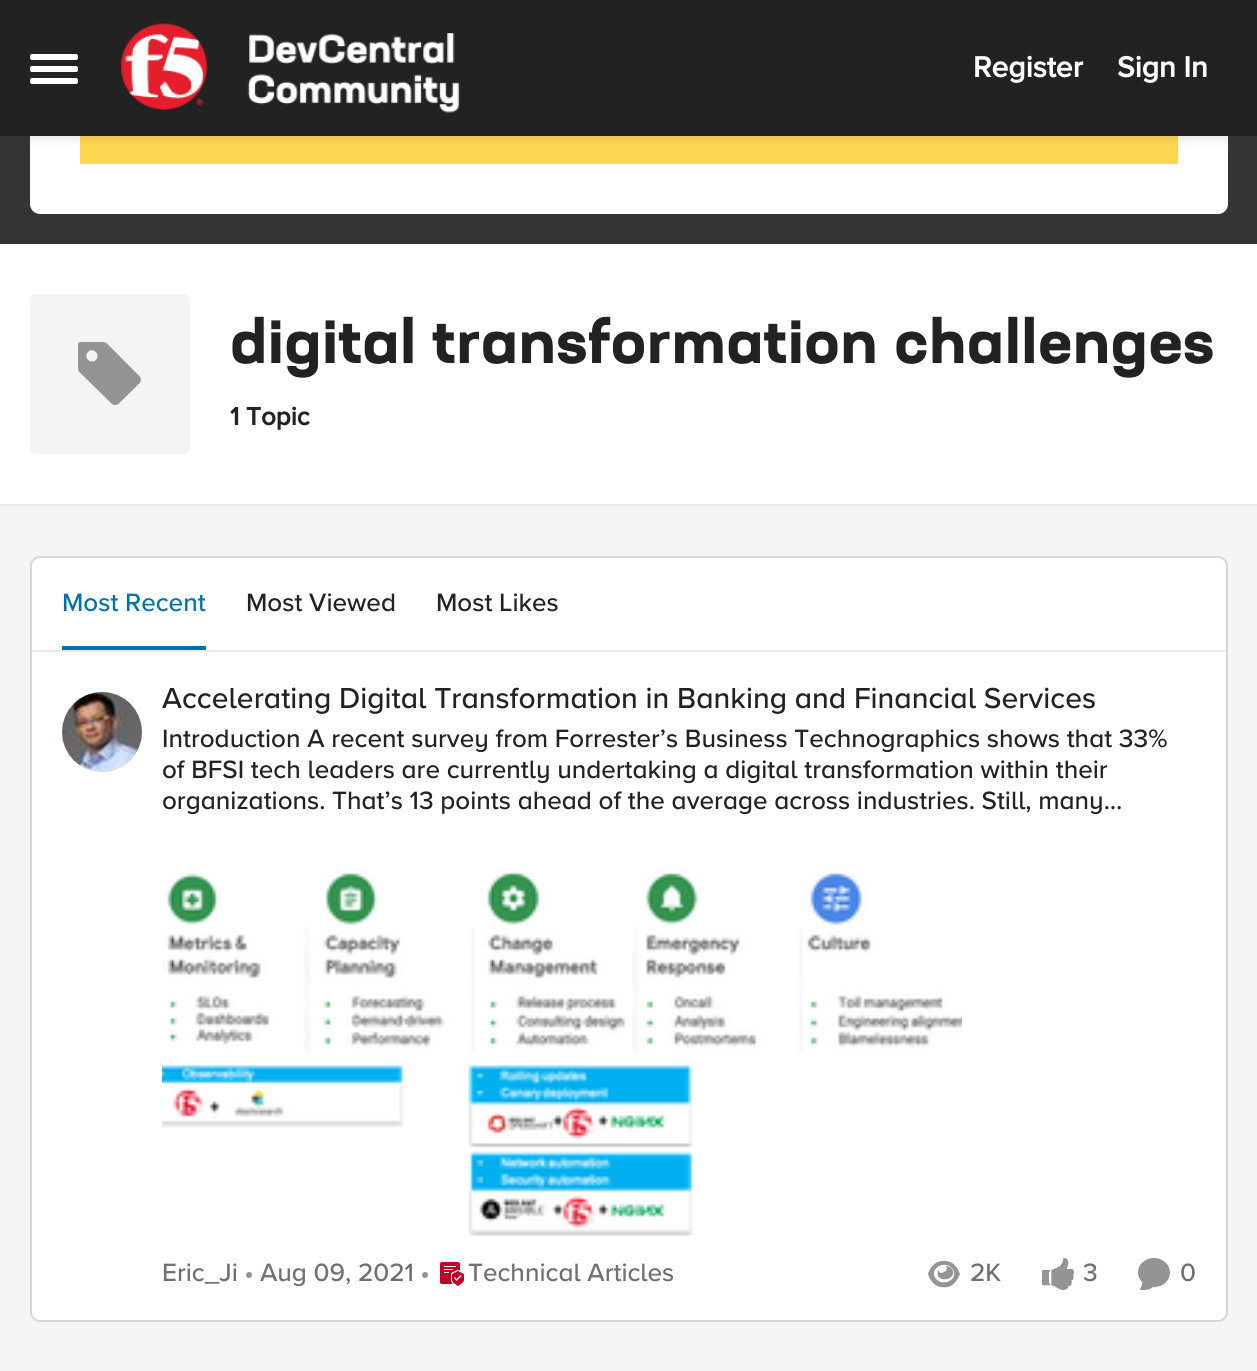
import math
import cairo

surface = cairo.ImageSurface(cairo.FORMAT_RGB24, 1257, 1371)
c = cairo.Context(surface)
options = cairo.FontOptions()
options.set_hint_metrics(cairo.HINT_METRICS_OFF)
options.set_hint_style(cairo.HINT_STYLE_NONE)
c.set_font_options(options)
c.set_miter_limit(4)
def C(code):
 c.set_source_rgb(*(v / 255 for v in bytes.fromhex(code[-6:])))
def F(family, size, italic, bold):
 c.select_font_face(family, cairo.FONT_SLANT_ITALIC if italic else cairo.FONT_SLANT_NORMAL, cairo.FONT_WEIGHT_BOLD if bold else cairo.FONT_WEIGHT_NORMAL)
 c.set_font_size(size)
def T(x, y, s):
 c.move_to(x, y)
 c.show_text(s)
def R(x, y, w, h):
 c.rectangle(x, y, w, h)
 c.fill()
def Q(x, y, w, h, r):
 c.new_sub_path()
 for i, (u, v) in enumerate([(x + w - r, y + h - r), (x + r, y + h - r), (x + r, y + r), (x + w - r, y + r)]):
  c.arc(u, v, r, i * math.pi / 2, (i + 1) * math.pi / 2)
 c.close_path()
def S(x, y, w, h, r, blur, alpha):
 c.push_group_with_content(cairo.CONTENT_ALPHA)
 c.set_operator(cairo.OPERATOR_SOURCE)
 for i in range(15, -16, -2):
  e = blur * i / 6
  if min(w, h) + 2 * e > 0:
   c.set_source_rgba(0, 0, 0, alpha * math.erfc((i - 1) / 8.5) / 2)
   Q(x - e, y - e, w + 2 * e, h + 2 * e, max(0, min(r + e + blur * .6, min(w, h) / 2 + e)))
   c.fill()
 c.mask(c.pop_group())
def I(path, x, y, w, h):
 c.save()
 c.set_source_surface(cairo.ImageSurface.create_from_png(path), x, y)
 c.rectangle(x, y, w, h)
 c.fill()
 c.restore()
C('f5f5f5')
c.paint()
C('343434')
R(0,136,1257,108)
C('ffffff')
Q(30,-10,1198,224,10)
c.fill()
C('ffd651')
R(80,136,1098,28)
C('333333')
S(0,4,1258,136,0,4,.12)
C('222222')
R(0,0,1257,136)
C('ffffff')
Q(30,54,48,6,2)
c.fill()
Q(30,66,48,6,2)
c.fill()
Q(30,78,48,6,2)
c.fill()
I('1.png',121,23,339,90)
F('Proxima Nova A',30,0,1)
T(973,77,'Register')
T(1117,77,'Sign In')
R(0,244,1257,260)
C('ebebeb')
R(0,504,1257,2)
C('f4f4f4')
Q(30,294,160,160,6)
c.fill()
I('2.png',78,342,63,63)
F('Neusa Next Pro',60,0,1)
C('222222')
T(230,363,'digital transformation challenges')
F('Proxima Nova A',26,0,1)
T(230,425,'1 Topic')
C('ffffff')
Q(30,556,1198,766,10)
c.fill()
Q(31,557,1196,764,9)
c.set_source_rgba(0,0,0,0.16)
c.stroke()
C('ebebeb')
R(32,650,1194,2)
F('Proxima Nova A Medium',26,0,0)
C('0072b0')
T(62,611,'Most Recent')
R(62,646,144,4)
C('222222')
T(246,611,'Most Viewed')
T(436,611,'Most Likes')
C('d9d9d9')
c.new_path()
c.arc(102,732,40,0,2 * math.pi)
c.fill()
I('3.png',62,692,80,80)
F('Proxima Nova A Medium',30,0,0)
C('222222')
T(162,708,'Accelerating Digital Transformation in Banking and Financial Services')
F('Proxima Nova A Medium',26,0,0)
T(162,747,'Introduction A recent survey from Forrester’s Business Technographics shows that 33%')
T(162,778,'of BFSI tech leaders are currently undertaking a digital transformation within their')
T(162,809,'organizations. That’s 13 points ahead of the average across industries. Still, many…')
I('4.png',162,870,800,366)
C('707070')
T(162,1281,'Eric_Ji')
C('949494')
c.new_path()
c.arc(249,1275,3,0,2 * math.pi)
c.fill()
C('707070')
T(260,1281,'Aug 09, 2021')
C('949494')
c.new_path()
c.arc(425,1275,3,0,2 * math.pi)
c.fill()
I('5.png',440,1262,24,24)
C('707070')
T(468,1281,'Technical Articles')
I('6.png',928,1260,32,28)
T(970,1281,'2K')
I('7.png',1042,1258,32,32)
T(1083,1281,'3')
I('8.png',1138,1258,32,32)
T(1180,1281,'0')
surface.write_to_png('o.png')
